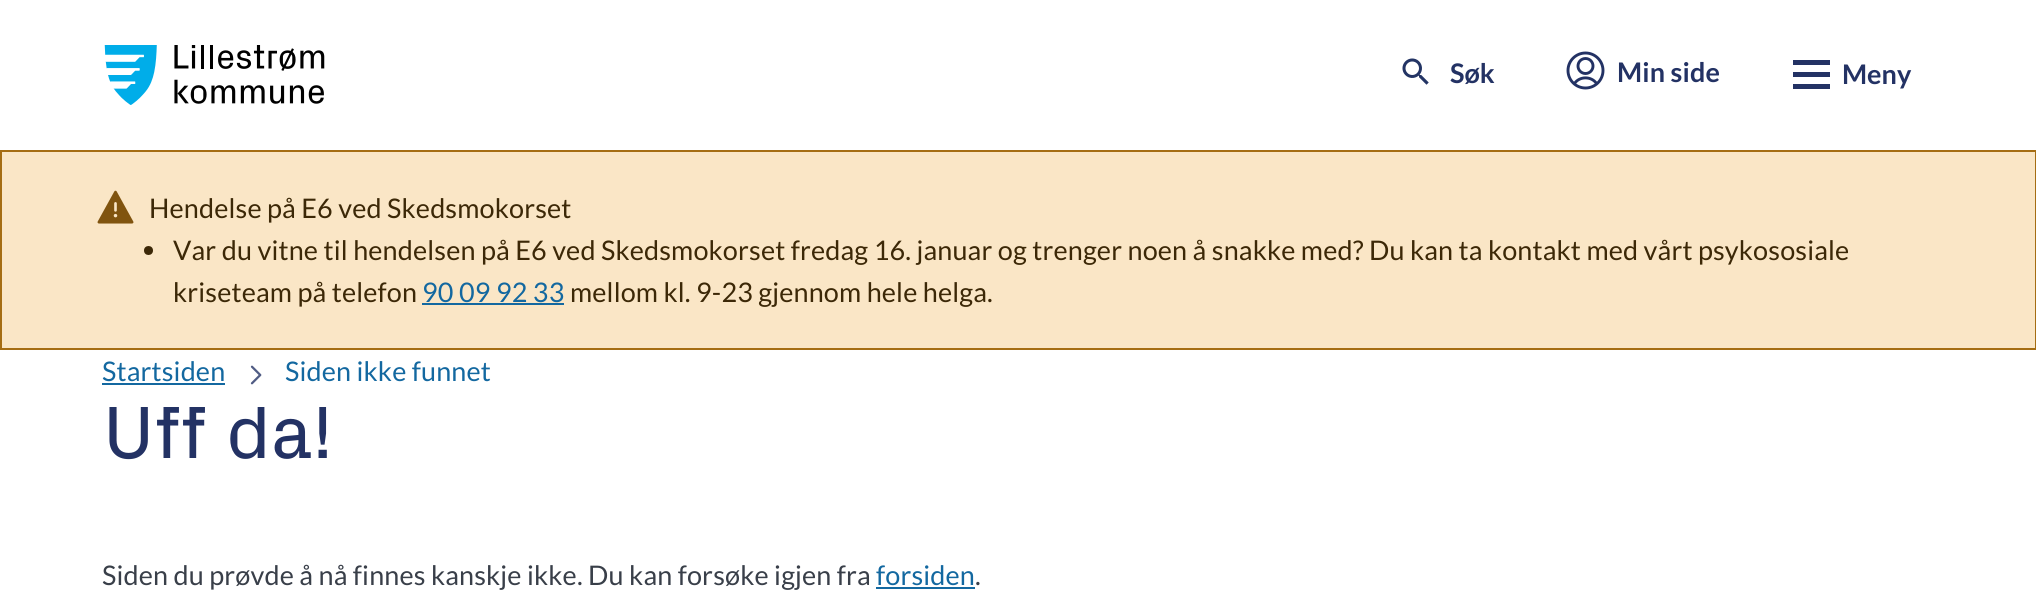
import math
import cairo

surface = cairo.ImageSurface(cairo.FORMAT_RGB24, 2036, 606)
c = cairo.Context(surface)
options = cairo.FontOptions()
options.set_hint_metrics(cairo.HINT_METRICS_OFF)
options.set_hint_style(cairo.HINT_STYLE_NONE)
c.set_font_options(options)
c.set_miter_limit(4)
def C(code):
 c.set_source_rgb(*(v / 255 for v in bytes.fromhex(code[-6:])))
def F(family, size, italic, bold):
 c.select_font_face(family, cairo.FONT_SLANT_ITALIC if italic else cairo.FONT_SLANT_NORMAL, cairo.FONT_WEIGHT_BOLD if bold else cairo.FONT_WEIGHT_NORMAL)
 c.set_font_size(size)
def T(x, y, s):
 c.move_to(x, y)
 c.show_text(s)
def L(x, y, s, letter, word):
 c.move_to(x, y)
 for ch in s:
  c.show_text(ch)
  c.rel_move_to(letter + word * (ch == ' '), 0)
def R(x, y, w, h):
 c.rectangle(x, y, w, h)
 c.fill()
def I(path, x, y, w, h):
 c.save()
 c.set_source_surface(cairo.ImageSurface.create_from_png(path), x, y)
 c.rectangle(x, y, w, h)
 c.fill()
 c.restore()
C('ffffff')
c.paint()
I('1.png',104,45,221,60)
I('2.png',1402,58,27,27)
F('Lato',27,0,1)
C('233264')
T(1450,83,'Søk')
c.new_path()
c.arc(1585.5,66,7.5,0,2 * math.pi)
c.set_line_width(2.9)
c.stroke()
c.arc(1585.5,70.5,17.5,0,2 * math.pi)
c.stroke()
c.new_path()
c.move_to(1596.5,83.5)
c.curve_to(1591.5,76,1579.5,76,1574.5,83.5)
c.stroke()
L(1617,82,'Min side',.14,0)
R(1793,60,37,5)
R(1793,72,37,5)
R(1793,84,37,5)
T(1842,84,'Meny')
C('fae6c6')
c.rectangle(1,151,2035,198)
c.fill_preserve()
C('a56d13')
c.set_line_width(2)
c.stroke()
I('3.png',97,190,37,34)
F('Lato',27,0,0)
C('3c2807')
L(149,218,'Hendelse på E6 ved Skedsmokorset',.14,0)
c.new_path()
c.arc(148.5,250.5,4.5,0,2 * math.pi)
c.fill()
L(173,260,'Var du vitne til hendelsen på E6 ved Skedsmokorset fredag 16. januar og trenger noen å snakke med? Du kan ta kontakt med vårt psykososiale',.14,0)
L(173,302,'kriseteam på telefon',.14,0)
C('1368a0')
L(422,302,'90 09 92 33',.14,0)
R(422,303,142,2)
C('3c2807')
L(570,302,'mellom kl. 9-23 gjennom hele helga.',.14,0)
C('1368a0')
L(102,381,'Startsiden',.14,0)
R(102,383,123,2)
I('4.png',250,365,12,20)
L(285,381,'Siden ikke funnet',.14,0)
F('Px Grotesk',75,0,0)
C('233264')
L(103,458,'Uff da!',.14,0)
F('Lato',27,0,0)
C('393f49')
L(102,585,'Siden du prøvde å nå finnes kanskje ikke. Du kan forsøke igjen fra',.14,0)
C('1368a0')
L(876,585,'forsiden',.14,0)
R(876,587,99,2)
C('393f49')
L(975,585,'.',.14,0)
surface.write_to_png('o.png')
